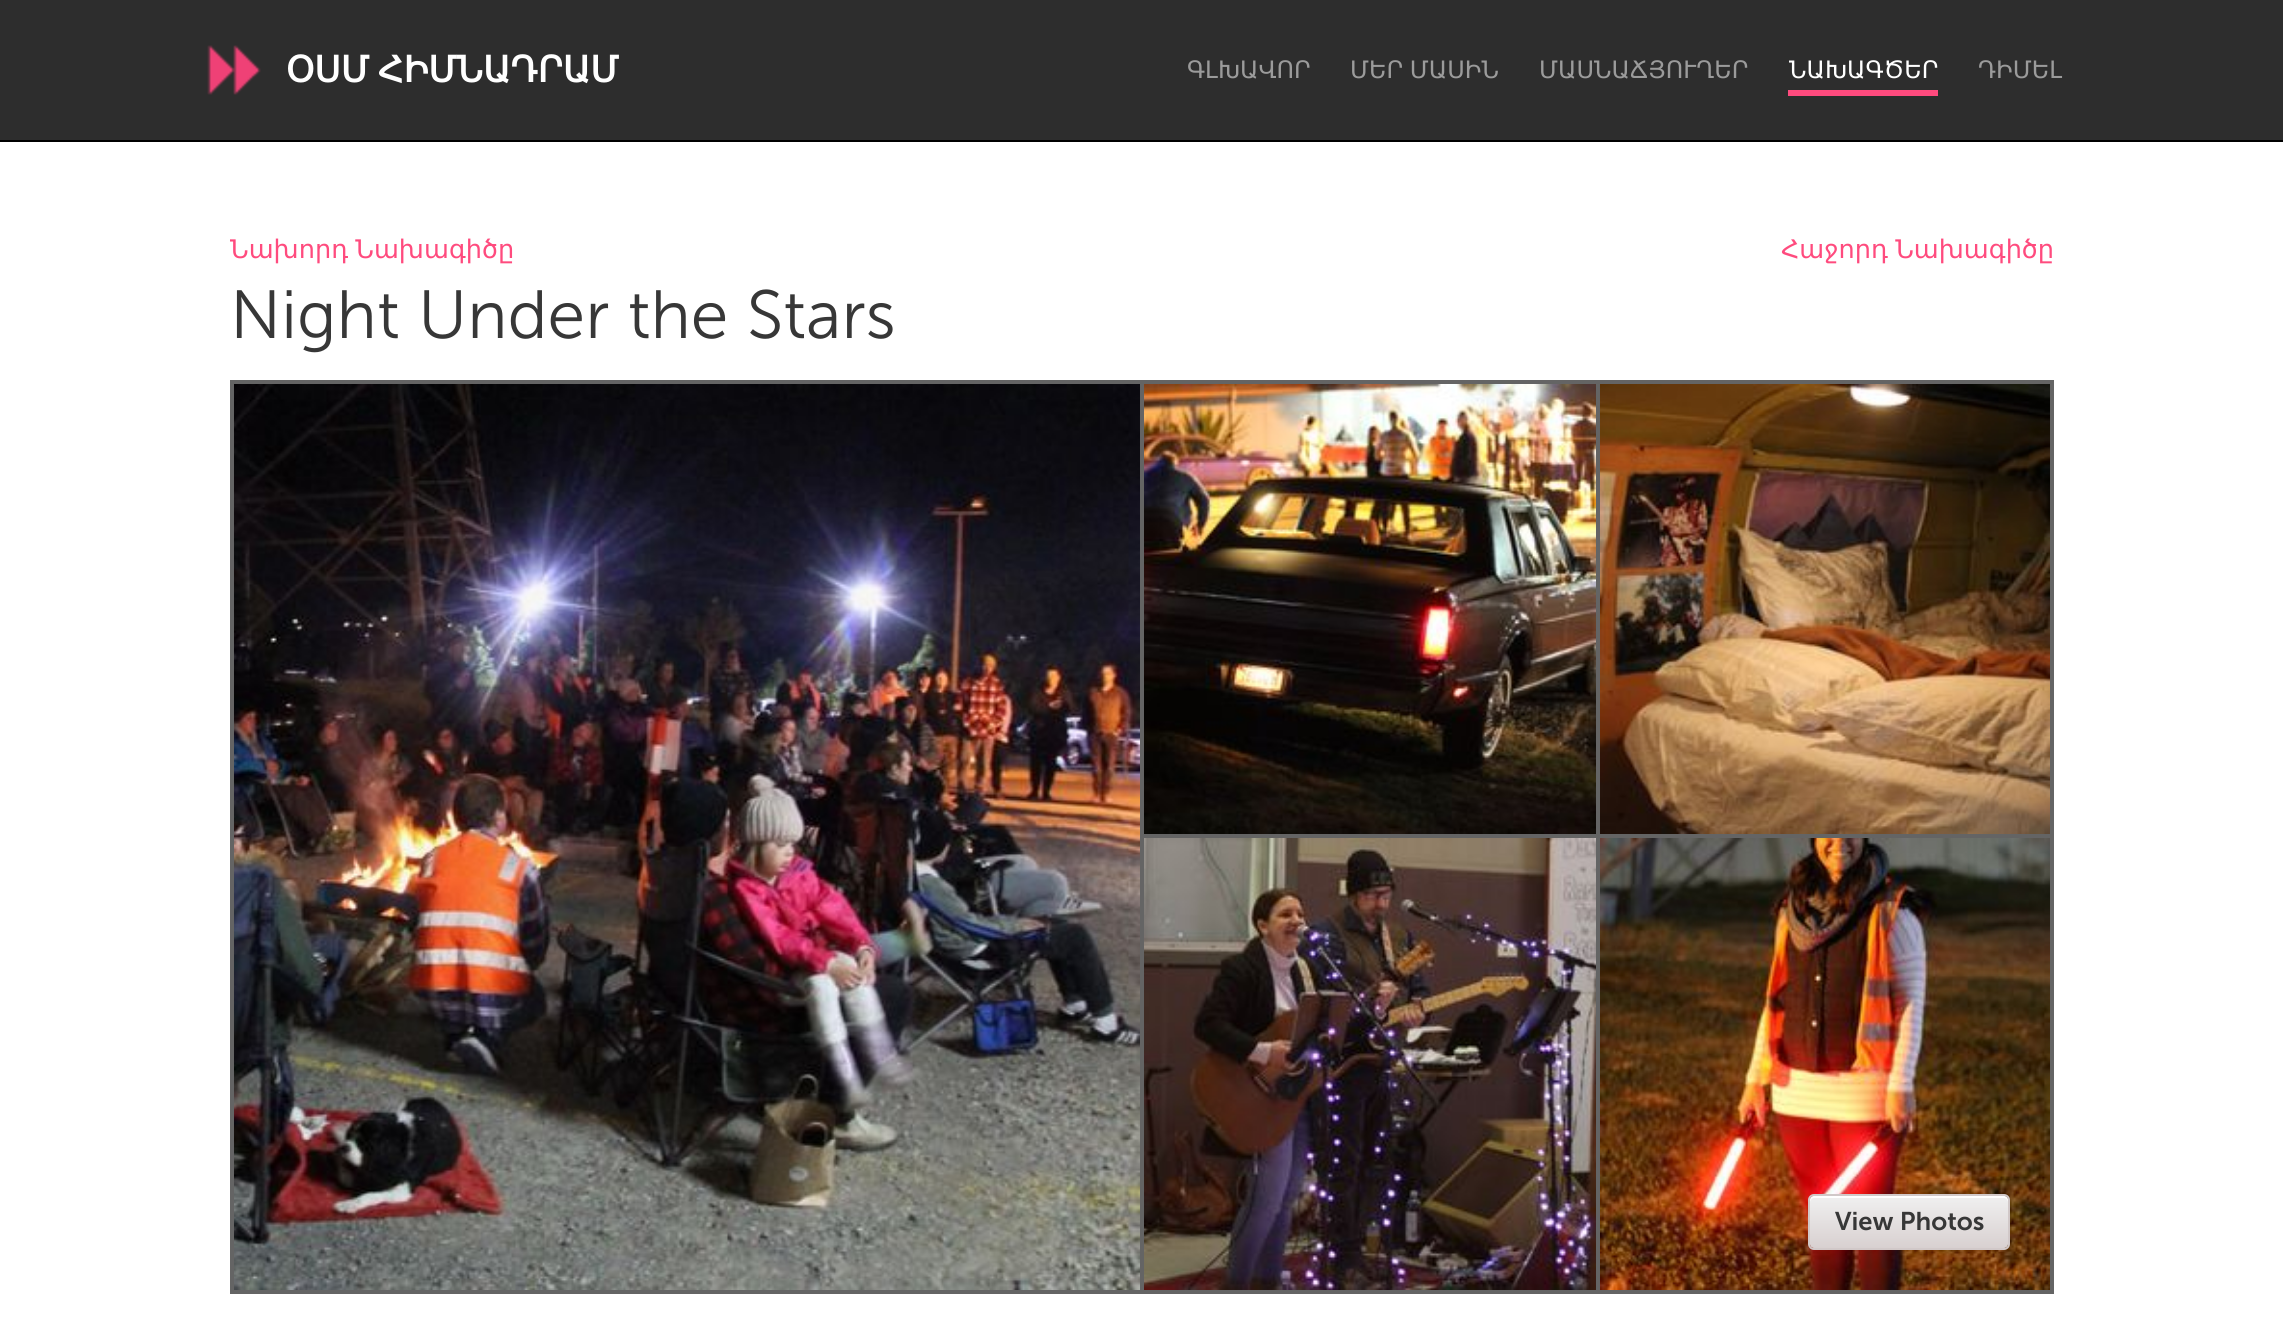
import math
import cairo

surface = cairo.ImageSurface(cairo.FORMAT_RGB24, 2283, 1321)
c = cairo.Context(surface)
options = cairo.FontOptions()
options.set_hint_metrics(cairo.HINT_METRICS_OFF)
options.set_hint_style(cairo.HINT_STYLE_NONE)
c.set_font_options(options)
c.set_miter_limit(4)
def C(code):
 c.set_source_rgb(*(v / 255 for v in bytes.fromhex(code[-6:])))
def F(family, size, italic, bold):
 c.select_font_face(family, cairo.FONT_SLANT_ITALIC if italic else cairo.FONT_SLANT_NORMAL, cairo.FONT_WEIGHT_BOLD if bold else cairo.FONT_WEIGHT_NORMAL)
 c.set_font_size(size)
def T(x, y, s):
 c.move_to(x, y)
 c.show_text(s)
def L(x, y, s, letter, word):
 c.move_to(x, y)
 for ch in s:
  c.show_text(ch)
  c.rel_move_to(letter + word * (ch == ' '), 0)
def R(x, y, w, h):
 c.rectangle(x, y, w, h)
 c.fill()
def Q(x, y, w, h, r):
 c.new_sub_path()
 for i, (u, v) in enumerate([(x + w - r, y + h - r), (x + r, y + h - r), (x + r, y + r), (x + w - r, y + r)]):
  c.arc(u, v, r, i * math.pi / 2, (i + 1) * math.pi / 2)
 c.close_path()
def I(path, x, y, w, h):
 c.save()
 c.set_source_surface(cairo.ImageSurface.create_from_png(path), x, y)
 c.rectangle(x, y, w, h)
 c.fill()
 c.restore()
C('ffffff')
c.paint()
C('2d2d2d')
R(0,0,2283,140)
C('000000')
R(0,140,2283,2)
I('1.png',207,45,54,50)
F('DejaVu Sans',36,0,1)
C('ffffff')
L(286,82,'ՕՍՄ ՀԻՄՆԱԴՐԱՄ',0,-3)
F('DejaVu Sans',24,0,0)
C('9b9b9b')
T(1187,78,'ԳԼԽԱՎՈՐ')
L(1350,78,'ՄԵՐ ՄԱՍԻՆ',0,-1)
T(1539,78,'ՄԱՍՆԱՃՅՈՒՂԵՐ')
C('ff4b7e')
R(1788,90,150,6)
C('ffffff')
T(1789,78,'ՆԱԽԱԳԾԵՐ')
C('9b9b9b')
T(1978,78,'ԴԻՄԵԼ')
F('DejaVu Sans',25.6,0,0)
C('ff4b7e')
L(230,258,'Նախորդ Նախագիծը',0,-1)
L(1781,258,'Հաջորդ Նախագիծը',0,-1)
F('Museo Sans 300 Light',68,0,0)
C('373737')
T(230,338,'Night Under the Stars')
C('646464')
R(230,380,1824,914)
I('2.png',234,384,906,906)
I('3.png',1144,384,452,450)
I('4.png',1600,384,450,450)
I('5.png',1144,838,452,452)
I('6.png',1600,838,450,452)
gradient = cairo.LinearGradient(1909,1196,1909,1248)
gradient.add_color_stop_rgba(0,0.941,0.941,0.941,1)
gradient.add_color_stop_rgba(1,0.847,0.816,0.816,1)
c.set_source(gradient)
Q(1810,1196,198,52,4)
c.fill()
C('ffffff')
c.new_path()
c.move_to(1814,1198)
c.line_to(2004,1198)
c.curve_to(2006,1198,2008,1200,2008,1202)
c.line_to(2008,1200)
c.curve_to(2008,1198,2006,1196,2004,1196)
c.line_to(1814,1196)
c.curve_to(1812,1196,1810,1198,1810,1200)
c.line_to(1810,1202)
c.curve_to(1810,1200,1812,1198,1814,1198)
c.close_path()
c.fill()
Q(1809,1195,200,54,5)
C('d1c8c8')
c.stroke()
F('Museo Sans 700 SemiBold',25.6,0,0)
C('373737')
T(1835,1230,'View Photos')
surface.write_to_png('o.png')
